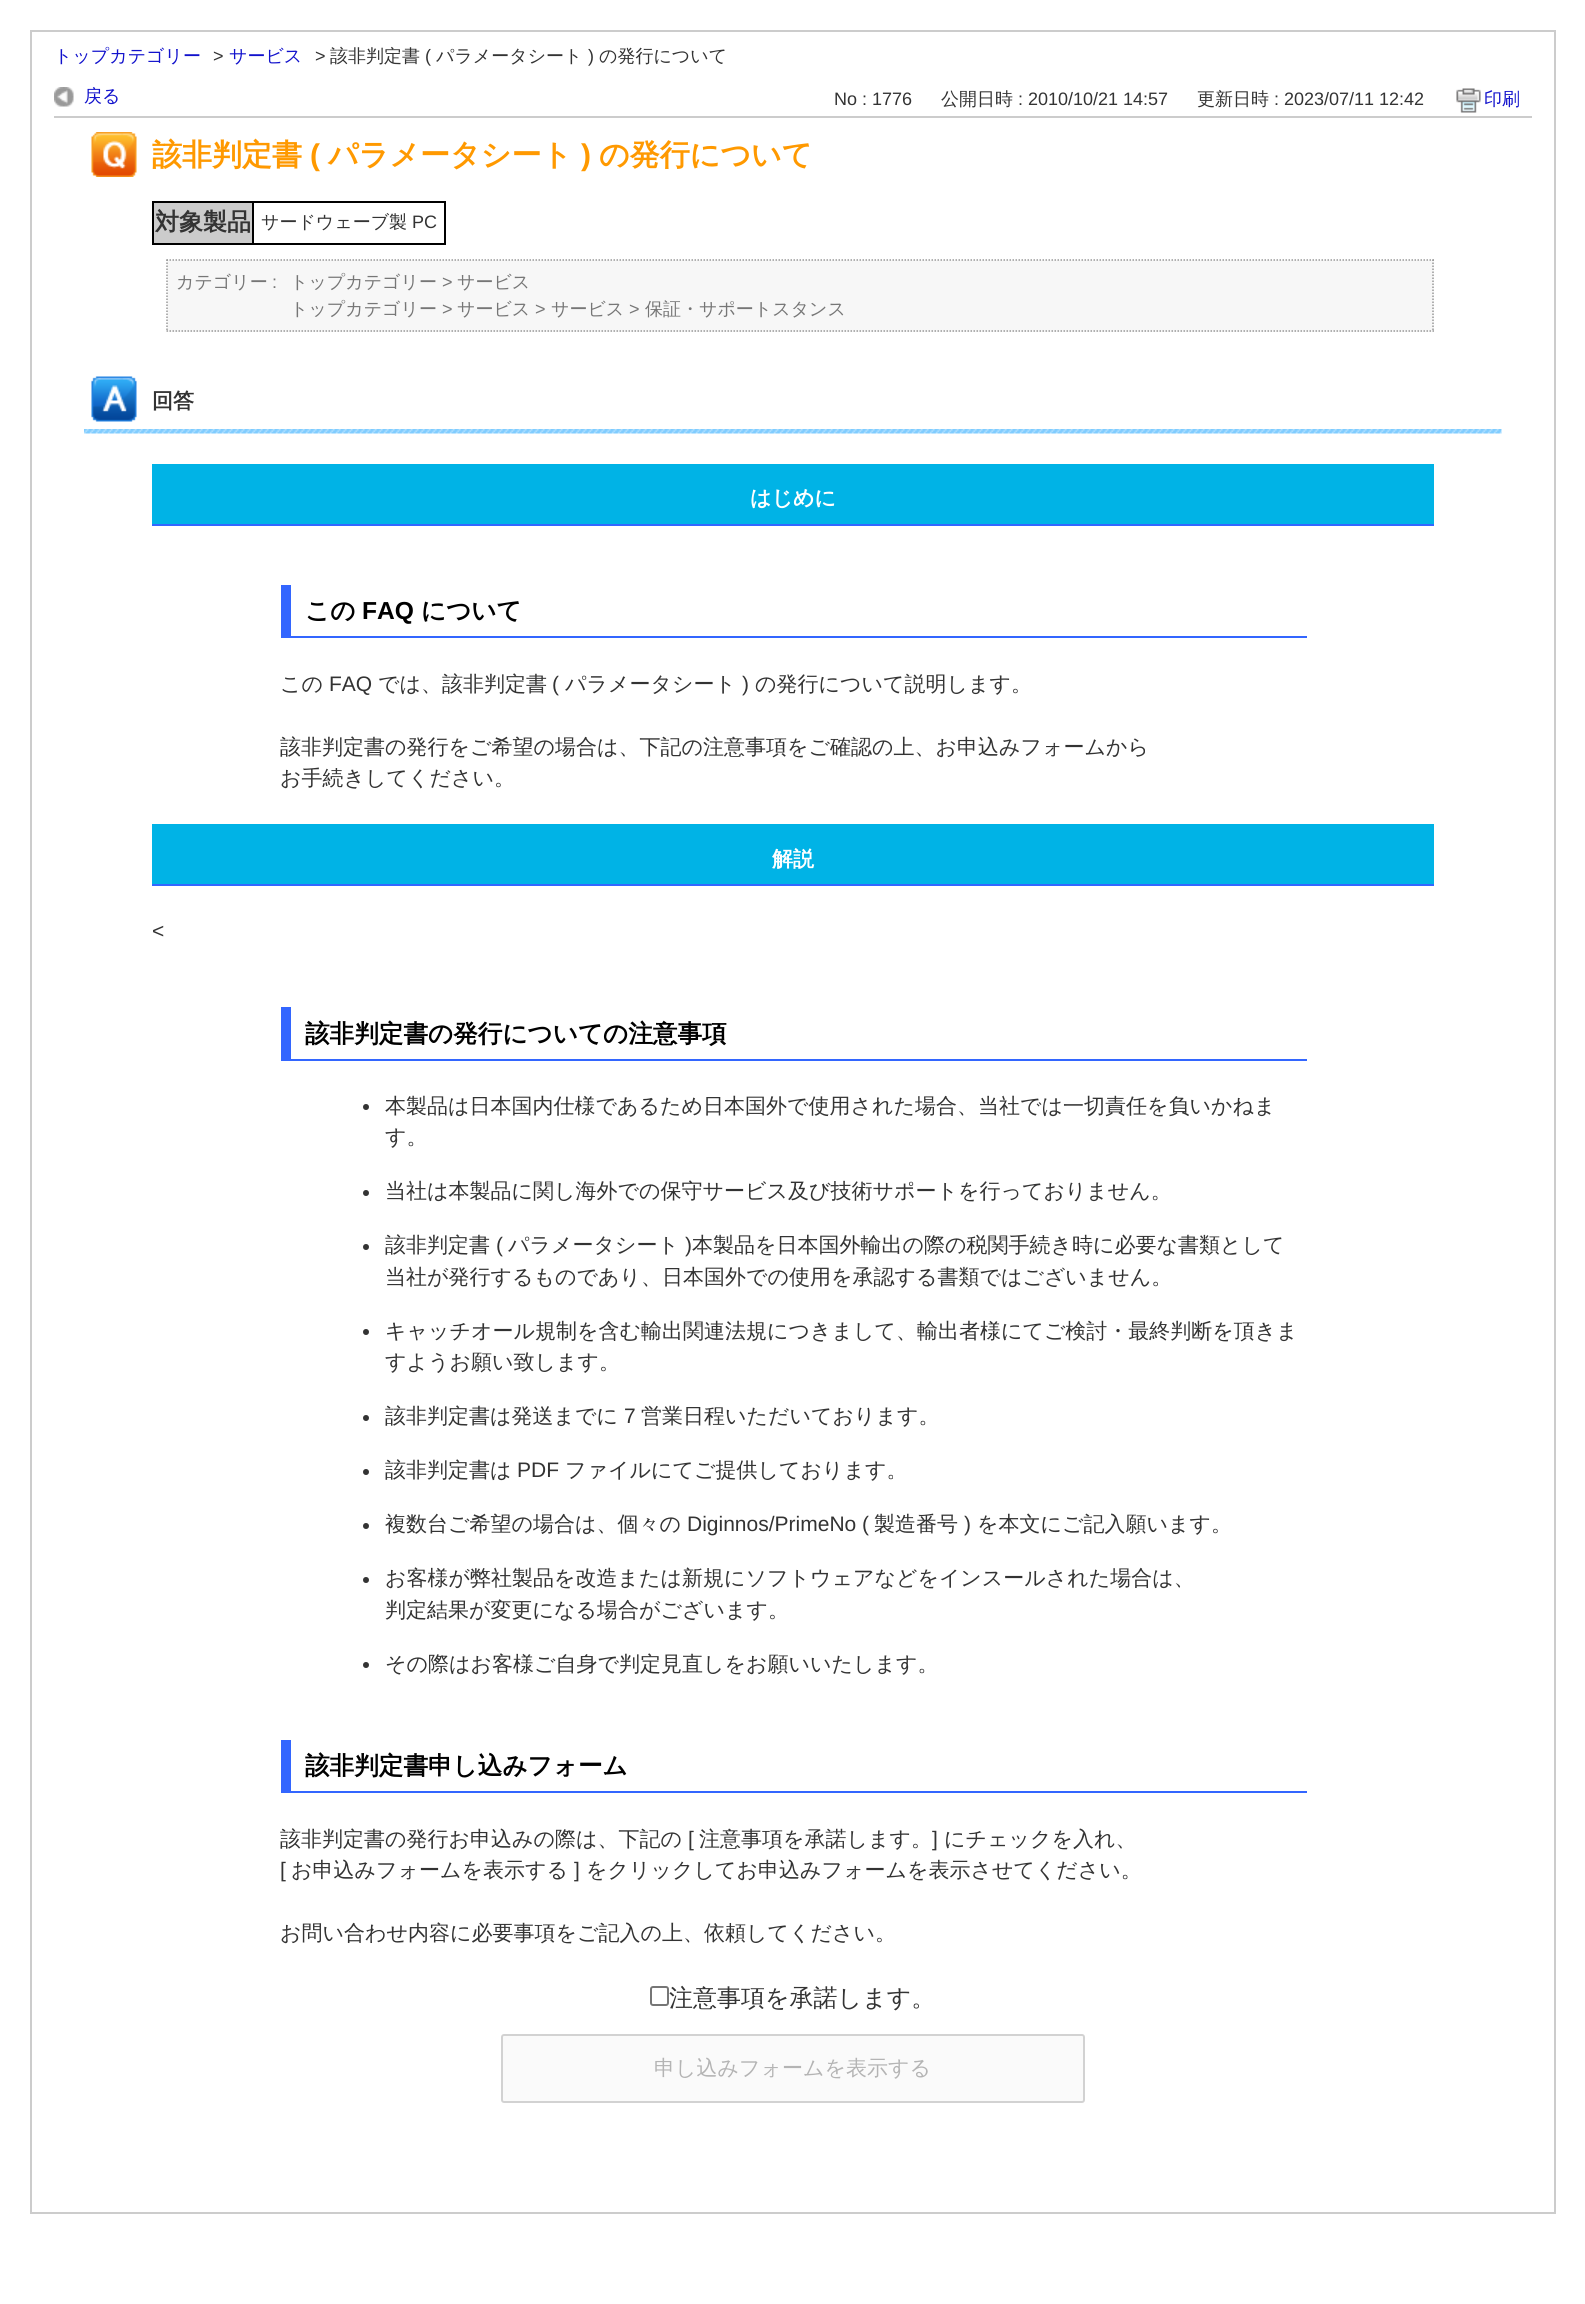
import math
import cairo

surface = cairo.ImageSurface(cairo.FORMAT_RGB24, 1585, 2304)
c = cairo.Context(surface)
options = cairo.FontOptions()
options.set_hint_metrics(cairo.HINT_METRICS_OFF)
options.set_hint_style(cairo.HINT_STYLE_NONE)
c.set_font_options(options)
c.set_miter_limit(4)
def C(code):
 c.set_source_rgb(*(v / 255 for v in bytes.fromhex(code[-6:])))
def F(family, size, italic, bold):
 c.select_font_face(family, cairo.FONT_SLANT_ITALIC if italic else cairo.FONT_SLANT_NORMAL, cairo.FONT_WEIGHT_BOLD if bold else cairo.FONT_WEIGHT_NORMAL)
 c.set_font_size(size)
def T(x, y, s):
 c.move_to(x, y)
 c.show_text(s)
def R(x, y, w, h):
 c.rectangle(x, y, w, h)
 c.fill()
def Q(x, y, w, h, r):
 c.new_sub_path()
 for i, (u, v) in enumerate([(x + w - r, y + h - r), (x + r, y + h - r), (x + r, y + r), (x + w - r, y + r)]):
  c.arc(u, v, r, i * math.pi / 2, (i + 1) * math.pi / 2)
 c.close_path()
def I(path, x, y, w, h):
 c.save()
 c.set_source_surface(cairo.ImageSurface.create_from_png(path), x, y)
 c.rectangle(x, y, w, h)
 c.fill()
 c.restore()
C('ffffff')
c.paint()
c.rectangle(31,31,1524,2182)
C('cccccc')
c.stroke()
F('WenQuanYi Zen Hei Medium',18,0,0)
C('1111cc')
T(54,62,'トップカテゴリー')
F('Liberation Sans',18,0,0)
C('333333')
T(213,62,'>')
F('WenQuanYi Zen Hei Medium',18,0,0)
C('1111cc')
T(229,62,'サービス')
F('Liberation Sans',18,0,0)
C('333333')
T(315,62,'>')
F('WenQuanYi Zen Hei Medium',18,0,0)
T(330,62,'該非判定書')
F('Liberation Sans',18,0,0)
T(425,62,'(')
F('WenQuanYi Zen Hei Medium',18,0,0)
T(436,62,'パラメータシート')
F('Liberation Sans',18,0,0)
T(588,62,')')
F('WenQuanYi Zen Hei Medium',18,0,0)
T(599,62,'の発行について')
C('cccccc')
R(54,116,1478,2)
I('1.png',54,87,20,20)
C('1111cc')
T(84,102,'戻る')
F('Liberation Sans',18,0,0)
C('333333')
T(834,105,'No : 1776')
F('WenQuanYi Zen Hei Medium',18,0,0)
T(941,105,'公開日時')
F('Liberation Sans',18,0,0)
T(1018,105,': 2010/10/21 14:57')
F('WenQuanYi Zen Hei Medium',18,0,0)
T(1197,105,'更新日時')
F('Liberation Sans',18,0,0)
T(1274,105,': 2023/07/11 12:42')
I('2.png',1456,88,25,25)
F('WenQuanYi Zen Hei Medium',18,0,0)
C('1111cc')
T(1484,105,'印刷')
I('3.png',91,132,46,45)
F('WenQuanYi Zen Hei',30,0,1)
C('ff9900')
T(152,165,'該非判定書')
F('Liberation Sans',30,0,1)
T(310,165,'(')
F('WenQuanYi Zen Hei',30,0,1)
T(328,165,'パラメータシート')
F('Liberation Sans',30,0,1)
T(581,165,')')
F('WenQuanYi Zen Hei',30,0,1)
T(599,165,'の発行について')
C('000000')
R(152,201,294,2)
R(444,201,2,44)
R(152,243,294,2)
R(152,201,2,44)
C('cccccc')
R(154,203,98,40)
F('WenQuanYi Zen Hei',24,0,1)
C('333333')
T(155,230,'対象製品')
C('000000')
R(252,201,2,44)
F('WenQuanYi Zen Hei Medium',18,0,0)
C('333333')
T(261,228,'サードウェーブ製')
F('Liberation Sans',18,0,0)
T(412,228,'PC')
C('f7f7f7')
R(167,260,1267,72)
c.new_path()
c.move_to(166.5,260)
c.line_to(1434,260)
C('999999')
c.set_line_width(1.5)
c.set_dash([1.5,1.5])
c.stroke()
c.new_path()
c.move_to(1433,259.5)
c.line_to(1433,331.5)
c.stroke()
c.new_path()
c.move_to(166.5,331)
c.line_to(1434,331)
c.stroke()
c.new_path()
c.move_to(167,259.5)
c.line_to(167,331.5)
c.stroke()
F('WenQuanYi Zen Hei Medium',18,0,0)
C('767676')
T(176,288,'カテゴリー')
F('Liberation Sans',18,0,0)
T(272,288,':')
F('WenQuanYi Zen Hei Medium',18,0,0)
T(290,288,'トップカテゴリー')
F('Liberation Sans',18,0,0)
T(442,288,'>')
F('WenQuanYi Zen Hei Medium',18,0,0)
T(457,288,'サービス')
T(290,315,'トップカテゴリー')
F('Liberation Sans',18,0,0)
T(442,315,'>')
F('WenQuanYi Zen Hei Medium',18,0,0)
T(457,315,'サービス')
F('Liberation Sans',18,0,0)
T(535,315,'>')
F('WenQuanYi Zen Hei Medium',18,0,0)
T(551,315,'サービス')
F('Liberation Sans',18,0,0)
T(629,315,'>')
F('WenQuanYi Zen Hei Medium',18,0,0)
T(645,315,'保証・サポートスタンス')
I('4.png',84,429,1418,5)
I('5.png',91,376,46,46)
F('WenQuanYi Zen Hei',21,0,1)
C('333333')
T(152,408,'回答')
C('00b3e6')
R(152,464,1282,60)
C('3366ff')
R(152,524,1282,2)
C('ffffff')
T(750,505,'はじめに')
C('3366ff')
R(291,636,1016,2)
R(281,585,10,53)
F('WenQuanYi Zen Hei',24.6,0,1)
C('000000')
T(305,619,'この')
F('Liberation Sans',24.6,0,1)
T(362,619,'FAQ')
F('WenQuanYi Zen Hei',24.6,0,1)
T(421,619,'について')
F('WenQuanYi Zen Hei Medium',21,0,0)
C('333333')
T(280,691,'この')
F('Liberation Sans',21,0,0)
T(329,691,'FAQ')
F('WenQuanYi Zen Hei Medium',21,0,0)
T(378,691,'では、該非判定書')
F('Liberation Sans',21,0,0)
T(552,691,'(')
F('WenQuanYi Zen Hei Medium',21,0,0)
T(565,691,'パラメータシート')
F('Liberation Sans',21,0,0)
T(742,691,')')
F('WenQuanYi Zen Hei Medium',21,0,0)
T(755,691,'の発行について説明します。')
T(280,754,'該非判定書の発行をご希望の場合は、下記の注意事項をご確認の上、お申込みフォームから')
T(280,785,'お手続きしてください。')
C('00b3e6')
R(152,824,1282,60)
C('3366ff')
R(152,884,1282,2)
F('WenQuanYi Zen Hei',21,0,1)
C('ffffff')
T(772,866,'解説')
F('Liberation Sans',21,0,0)
C('333333')
T(152,938,'<')
C('3366ff')
R(291,1059,1016,2)
R(281,1007,10,54)
F('WenQuanYi Zen Hei',24.6,0,1)
C('000000')
T(305,1042,'該非判定書の発行についての注意事項')
C('333333')
c.new_path()
c.arc(366,1107,3,0,2 * math.pi)
c.fill()
F('WenQuanYi Zen Hei Medium',21,0,0)
T(385,1113,'本製品は日本国内仕様であるため日本国外で使用された場合、当社では一切責任を負いかねま')
T(385,1144,'す。')
c.new_path()
c.arc(366,1193,3,0,2 * math.pi)
c.fill()
T(385,1198,'当社は本製品に関し海外での保守サービス及び技術サポートを行っておりません。')
c.new_path()
c.arc(366,1247,3,0,2 * math.pi)
c.fill()
T(385,1252,'該非判定書')
F('Liberation Sans',21,0,0)
T(496,1252,'(')
F('WenQuanYi Zen Hei Medium',21,0,0)
T(508,1252,'パラメータシート')
F('Liberation Sans',21,0,0)
T(685,1252,')')
F('WenQuanYi Zen Hei Medium',21,0,0)
T(692,1252,'本製品を日本国外輸出の際の税関手続き時に必要な書類として')
T(385,1284,'当社が発行するものであり、日本国外での使用を承認する書類ではございません。')
c.new_path()
c.arc(366,1332,3,0,2 * math.pi)
c.fill()
T(385,1338,'キャッチオール規制を含む輸出関連法規につきまして、輸出者様にてご検討・最終判断を頂きま')
T(385,1369,'すようお願い致します。')
c.new_path()
c.arc(366,1418,3,0,2 * math.pi)
c.fill()
T(385,1423,'該非判定書は発送までに')
F('Liberation Sans',21,0,0)
T(624,1423,'7')
F('WenQuanYi Zen Hei Medium',21,0,0)
T(641,1423,'営業日程いただいております。')
c.new_path()
c.arc(366,1472,3,0,2 * math.pi)
c.fill()
T(385,1477,'該非判定書は')
F('Liberation Sans',21,0,0)
T(517,1477,'PDF')
F('WenQuanYi Zen Hei Medium',21,0,0)
T(565,1477,'ファイルにてご提供しております。')
c.new_path()
c.arc(366,1526,3,0,2 * math.pi)
c.fill()
T(385,1531,'複数台ご希望の場合は、個々の')
F('Liberation Sans',21,0,0)
T(687,1531,'Diginnos/PrimeNo (')
F('WenQuanYi Zen Hei Medium',21,0,0)
T(874,1531,'製造番号')
F('Liberation Sans',21,0,0)
T(964,1531,')')
F('WenQuanYi Zen Hei Medium',21,0,0)
T(977,1531,'を本文にご記入願います。')
c.new_path()
c.arc(366,1580,3,0,2 * math.pi)
c.fill()
T(385,1585,'お客様が弊社製品を改造または新規にソフトウェアなどをインスールされた場合は、')
T(385,1617,'判定結果が変更になる場合がございます。')
c.new_path()
c.arc(366,1665,3,0,2 * math.pi)
c.fill()
T(385,1671,'その際はお客様ご自身で判定見直しをお願いいたします。')
C('3366ff')
R(291,1791,1016,2)
R(281,1740,10,53)
F('WenQuanYi Zen Hei',24.6,0,1)
C('000000')
T(305,1774,'該非判定書申し込みフォーム')
F('WenQuanYi Zen Hei Medium',21,0,0)
C('333333')
T(280,1846,'該非判定書の発行お申込みの際は、下記の')
F('Liberation Sans',21,0,0)
T(688,1846,'[')
F('WenQuanYi Zen Hei Medium',21,0,0)
T(699,1846,'注意事項を承諾します。')
F('Liberation Sans',21,0,0)
T(932,1846,']')
F('WenQuanYi Zen Hei Medium',21,0,0)
T(944,1846,'にチェックを入れ、')
F('Liberation Sans',21,0,0)
T(280,1877,'[')
F('WenQuanYi Zen Hei Medium',21,0,0)
T(291,1877,'お申込みフォームを表示する')
F('Liberation Sans',21,0,0)
T(574,1877,']')
F('WenQuanYi Zen Hei Medium',21,0,0)
T(586,1877,'をクリックしてお申込みフォームを表示させてください。')
T(280,1940,'お問い合わせ内容に必要事項をご記入の上、依頼してください。')
Q(651,1987,17,18,2)
C('767676')
c.set_line_width(2)
c.set_dash([])
c.stroke()
F('WenQuanYi Zen Hei Medium',24,0,0)
C('333333')
T(669,2006,'注意事項を承諾します。')
C('fafafa')
Q(502,2035,582,67,2)
c.fill_preserve()
C('d2d2d2')
c.stroke()
F('WenQuanYi Zen Hei Medium',21,0,0)
C('b4b4b4')
T(654,2075,'申し込みフォームを表示する')
surface.write_to_png('o.png')
